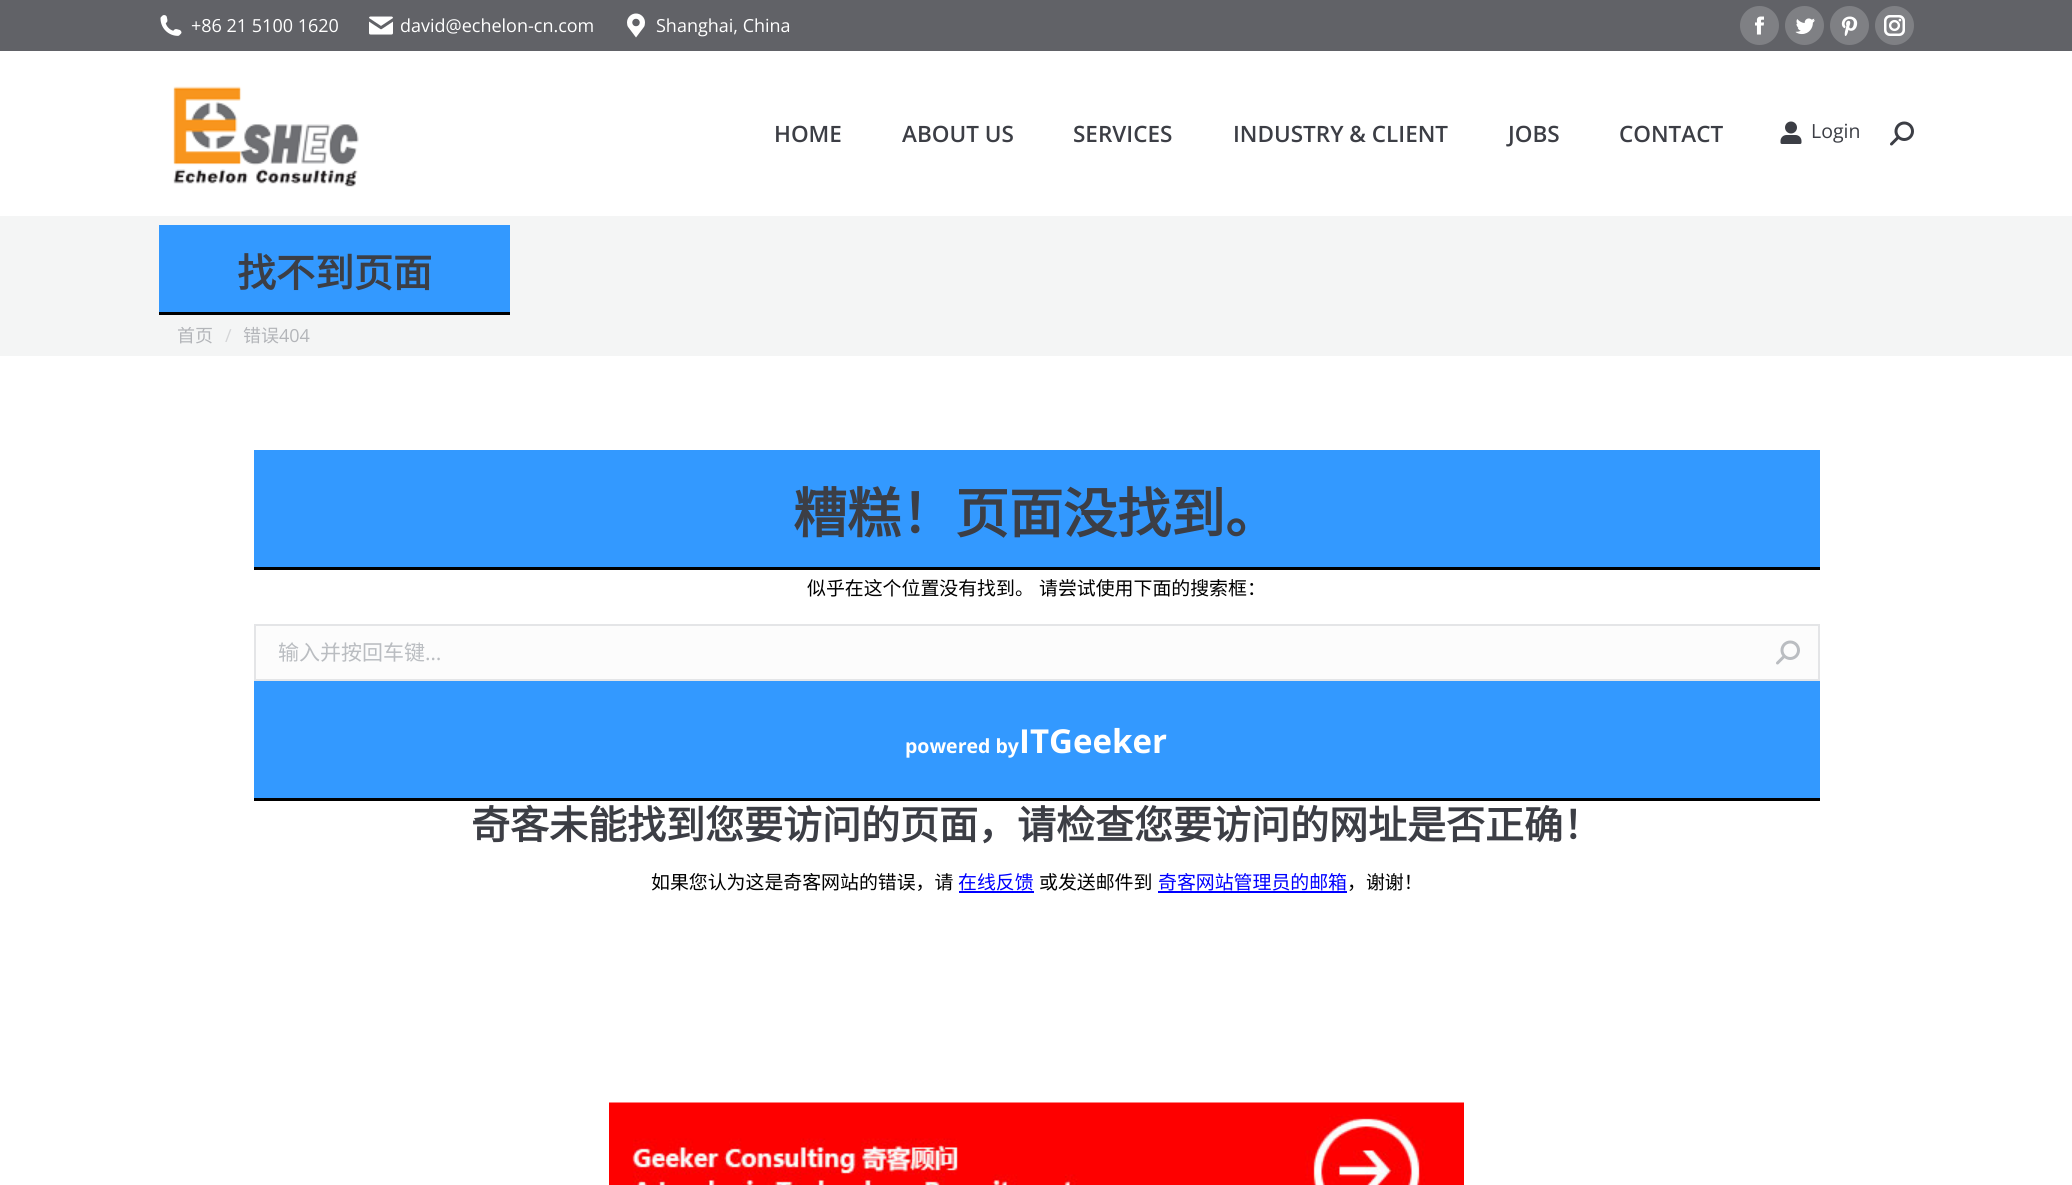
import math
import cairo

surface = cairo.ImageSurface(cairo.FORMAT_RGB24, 2072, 1185)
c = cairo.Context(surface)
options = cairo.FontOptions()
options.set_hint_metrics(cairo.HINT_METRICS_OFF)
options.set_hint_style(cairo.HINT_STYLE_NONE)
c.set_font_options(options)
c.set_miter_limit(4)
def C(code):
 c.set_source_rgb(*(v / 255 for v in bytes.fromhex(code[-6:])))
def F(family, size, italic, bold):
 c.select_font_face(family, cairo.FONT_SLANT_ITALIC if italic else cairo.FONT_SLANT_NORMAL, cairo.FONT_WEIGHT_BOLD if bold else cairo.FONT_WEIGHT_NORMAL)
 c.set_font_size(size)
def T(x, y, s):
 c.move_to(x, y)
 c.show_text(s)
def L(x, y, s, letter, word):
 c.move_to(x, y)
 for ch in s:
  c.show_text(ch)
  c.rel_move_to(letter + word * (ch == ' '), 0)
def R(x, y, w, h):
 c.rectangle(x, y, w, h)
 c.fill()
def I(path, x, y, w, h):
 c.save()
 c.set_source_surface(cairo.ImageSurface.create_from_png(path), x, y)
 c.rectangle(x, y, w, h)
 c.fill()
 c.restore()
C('ffffff')
c.paint()
C('616267')
R(0,0,2072,51)
I('1.png',160,15,22,21)
F('Open Sans',18,0,0)
C('ffffff')
T(191,32,'+86 21 5100 1620')
I('2.png',369,16,24,19)
T(400,32,'david@echelon-cn.com')
I('3.png',627,13,18,25)
T(656,32,'Shanghai, China')
C('7f8084')
c.new_path()
c.arc(1759.5,25.5,19.5,0,2 * math.pi)
c.fill()
I('4.png',1755,16,9,19)
c.arc(1804.5,25.5,19.5,0,2 * math.pi)
c.fill()
I('5.png',1795,18,20,17)
c.arc(1849.5,25.5,19.5,0,2 * math.pi)
c.fill()
I('6.png',1841,16,17,20)
c.arc(1894.5,25.5,19.5,0,2 * math.pi)
c.fill()
I('7.png',1884,15,21,21)
I('8.png',173,86,186,101)
F('Open Sans SemiBold',22.5,0,0)
C('3c3e45')
T(774,142,'HOME')
T(902,142,'ABOUT US')
T(1073,142,'SERVICES')
T(1233,142,'INDUSTRY & CLIENT')
T(1508,142,'JOBS')
T(1619,142,'CONTACT')
I('9.png',1780,121,22,23)
F('Open Sans',19.5,0,0)
T(1811,138,'Login')
I('10.png',1890,121,24,25)
C('f4f5f5')
R(0,216,2072,140)
C('3399ff')
R(159,225,351,87)
C('000000')
R(159,312,351,3)
F('Noto Sans CJK SC',39,0,1)
C('3c3e45')
T(237,287,'找不到页面')
F('Noto Sans CJK SC',18,0,0)
C('b3b5b9')
T(177,342,'首页')
F('Open Sans',18,0,0)
C('d4d5d7')
T(225,342,'/')
F('Noto Sans CJK SC',18,0,0)
C('b3b5b9')
T(243,342,'错误')
F('Open Sans',18,0,0)
T(279,342,'404')
C('3399ff')
R(254,450,1566,117)
C('000000')
R(254,567,1566,3)
F('Noto Sans CJK SC',54,0,1)
C('3c3e45')
T(793,533,'糟糕！页面没找到。')
F('Noto Sans CJK SC',18.9,0,0)
C('000000')
L(807,595,'似乎在这个位置没有找到。 请尝试使用下面的搜索框：',0,1)
C('fcfcfc')
c.rectangle(255,625,1564,55)
c.fill_preserve()
C('e4e5e7')
c.stroke()
F('Noto Sans CJK SC',21,0,0)
C('babdc1')
T(278,660,'输入并按回车键')
F('Open Sans',21,0,0)
T(425,660,'…')
I('11.png',1776,640,24,25)
C('3399ff')
R(254,681,1566,117)
C('000000')
R(254,798,1566,3)
F('Open Sans',19.5,0,1)
C('ffffff')
T(905,753,'powered by')
F('Open Sans',33,0,1)
T(1019,753,'ITGeeker')
F('Noto Sans CJK SC',39,0,1)
C('3c3e45')
T(471,839,'奇客未能找到您要访问的页面，请检查您要访问的网址是否正确！')
F('Noto Sans CJK SC',18.9,0,0)
C('000000')
T(651,889,'如果您认为这是奇客网站的错误，请')
C('0000ff')
T(958,889,'在线反馈')
R(959,891,75,2)
C('000000')
T(1039,889,'或发送邮件到')
C('0000ff')
T(1158,889,'奇客网站管理员的邮箱')
R(1158,891,189,2)
C('000000')
T(1347,889,'，谢谢！')
I('12.png',609,1102,855,83)
surface.write_to_png('o.png')
